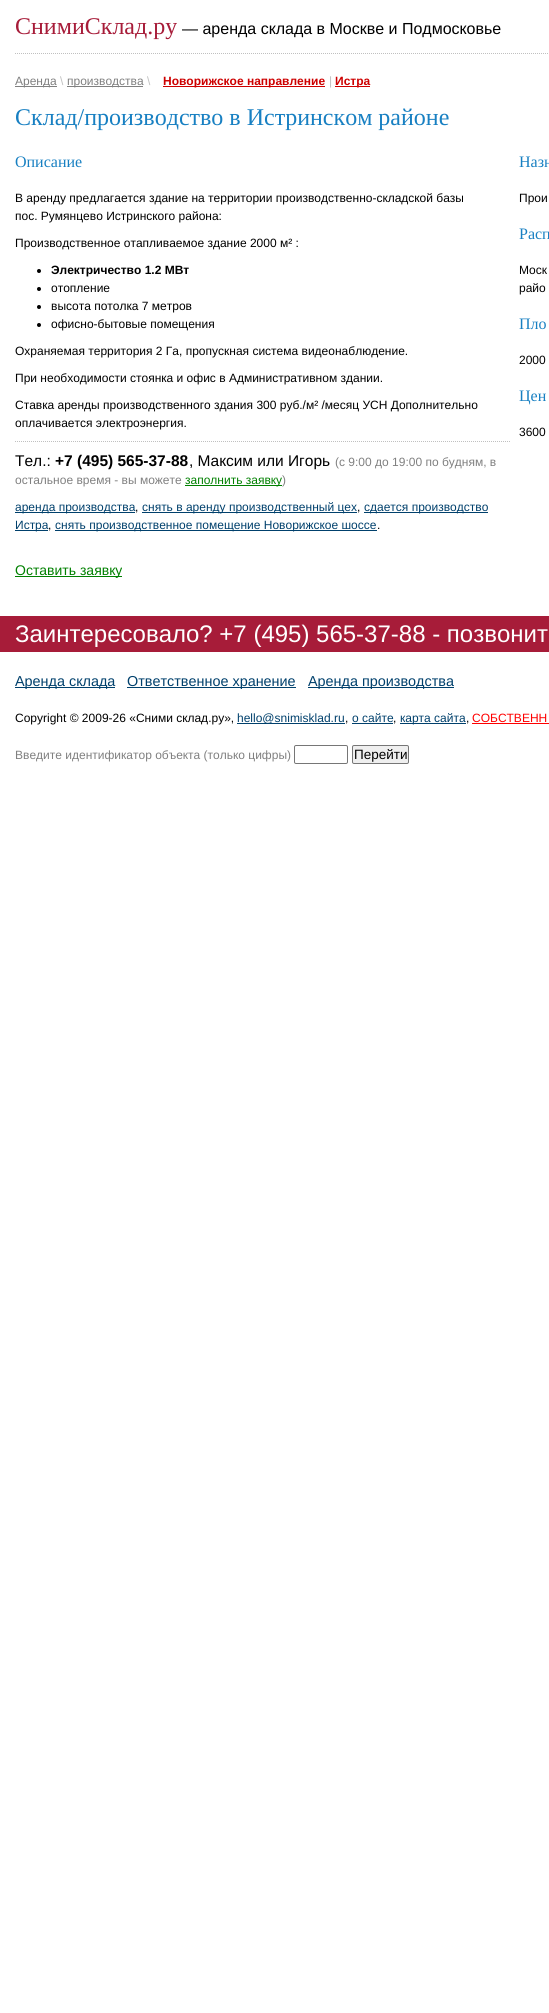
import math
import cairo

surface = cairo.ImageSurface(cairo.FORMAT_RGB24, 549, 2013)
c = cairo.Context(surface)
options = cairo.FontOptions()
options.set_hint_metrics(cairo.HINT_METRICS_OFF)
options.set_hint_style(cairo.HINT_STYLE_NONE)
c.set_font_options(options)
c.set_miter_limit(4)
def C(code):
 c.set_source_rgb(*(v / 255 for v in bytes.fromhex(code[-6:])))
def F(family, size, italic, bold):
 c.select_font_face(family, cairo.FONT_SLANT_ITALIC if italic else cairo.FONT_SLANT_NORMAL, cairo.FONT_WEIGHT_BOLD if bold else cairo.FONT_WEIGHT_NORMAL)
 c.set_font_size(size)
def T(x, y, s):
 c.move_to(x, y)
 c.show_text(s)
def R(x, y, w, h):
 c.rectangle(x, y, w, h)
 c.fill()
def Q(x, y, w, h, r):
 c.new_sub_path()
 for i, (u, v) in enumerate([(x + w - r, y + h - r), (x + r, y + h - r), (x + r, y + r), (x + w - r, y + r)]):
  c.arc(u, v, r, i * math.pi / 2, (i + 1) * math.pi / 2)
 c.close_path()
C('ffffff')
c.paint()
c.new_path()
c.move_to(15,53.5)
c.line_to(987,53.5)
C('c0c0c0')
c.set_line_width(1)
c.set_dash([1,1])
c.stroke()
F('Liberation Serif',24,0,0)
C('a71c39')
T(15,34,'СнимиСклад.ру')
F('Liberation Sans',16,0,0)
C('000000')
T(182,34,'— аренда склада в Москве и Подмосковье')
C('808080')
R(15,86,42,1)
F('Liberation Sans',12,0,0)
T(15,85,'Аренда')
C('c0c0c0')
T(60,85,'\\')
C('808080')
R(67,86,76,1)
T(67,85,'производства')
C('c0c0c0')
T(147,85,'\\')
C('cd0000')
R(163,86,162,1)
F('Liberation Sans',12,0,1)
T(163,85,'Новорижское направление')
F('Liberation Sans',12,0,0)
C('c0c0c0')
T(329,85,'|')
C('cd0000')
R(335,86,35,1)
F('Liberation Sans',12,0,1)
T(335,85,'Истра')
F('Liberation Serif',24,0,0)
C('1880c2')
T(15,125,'Склад/производство в Истринском районе')
F('Liberation Serif',16,0,0)
T(15,167,'Описание')
F('Liberation Sans',12,0,0)
C('000000')
T(15,202,'В аренду предлагается здание на территории производственно-складской базы')
T(15,220,'пос. Румянцево Истринского района:')
T(15,247,'Производственное отапливаемое здание 2000 м² :')
c.new_path()
c.arc(39,271,2,0,2 * math.pi)
c.fill()
F('Liberation Sans',12,0,1)
T(51,274,'Электричество 1.2 МВт')
c.new_path()
c.arc(39,289,2,0,2 * math.pi)
c.fill()
F('Liberation Sans',12,0,0)
T(51,292,'отопление')
c.new_path()
c.arc(39,307,2,0,2 * math.pi)
c.fill()
T(51,310,'высота потолка 7 метров')
c.new_path()
c.arc(39,325,2,0,2 * math.pi)
c.fill()
T(51,328,'офисно-бытовые помещения')
T(15,355,'Охраняемая территория 2 Га, пропускная система видеонаблюдение.')
T(15,382,'При необходимости стоянка и офис в Административном здании.')
T(15,409,'Ставка аренды производственного здания 300 руб./м² /месяц УСН Дополнительно')
T(15,427,'оплачивается электроэнергия.')
c.new_path()
c.move_to(15,441.5)
c.line_to(510,441.5)
C('c0c0c0')
c.stroke()
F('Liberation Sans',15.5,0,0)
C('000000')
T(15,466,'Тел.:')
F('Liberation Sans',15.5,0,1)
T(55,466,'+7 (495) 565-37-88')
F('Liberation Sans',15.5,0,0)
T(189,466,', Максим или Игорь')
F('Liberation Sans',12,0,0)
C('808080')
T(335,466,'(с 9:00 до 19:00 по будням, в')
T(15,484,'остальное время - вы можете')
C('008000')
R(185,485,97,1)
T(185,484,'заполнить заявку')
C('808080')
T(282,484,')')
C('00406c')
R(15,512,120,1)
T(15,511,'аренда производства')
C('000000')
T(135,511,',')
C('00406c')
R(142,512,215,1)
T(142,511,'снять в аренду производственный цех')
C('000000')
T(357,511,',')
C('00406c')
R(364,512,124,1)
T(364,511,'сдается производство')
R(15,530,33,1)
T(15,529,'Истра')
C('000000')
T(48,529,',')
C('00406c')
R(55,530,322,1)
T(55,529,'снять производственное помещение Новорижское шоссе')
C('000000')
T(377,529,'.')
C('008000')
R(15,576,107,1)
F('Liberation Sans',14,0,0)
T(15,575,'Оставить заявку')
F('Liberation Serif',16,0,0)
C('1880c2')
T(519,167,'Назн')
F('Liberation Sans',12,0,0)
C('000000')
T(519,202,'Прои')
F('Liberation Serif',16,0,0)
C('1880c2')
T(519,239,'Расп')
F('Liberation Sans',12,0,0)
C('000000')
T(519,274,'Моск')
T(519,292,'райо')
F('Liberation Serif',16,0,0)
C('1880c2')
T(519,329,'Пло')
F('Liberation Sans',12,0,0)
C('000000')
T(519,364,'2000')
F('Liberation Serif',16,0,0)
C('1880c2')
T(519,401,'Цен')
F('Liberation Sans',12,0,0)
C('000000')
T(519,436,'3600')
C('a71c39')
R(0,616,549,36)
F('Liberation Sans',24,0,0)
C('ffffff')
T(15,642,'Заинтересовало? +7 (495) 565-37-88 - позвонит')
C('00406c')
R(15,687,100,1)
F('Liberation Sans',14.4,0,0)
T(15,686,'Аренда склада')
R(127,687,169,1)
T(127,686,'Ответственное хранение')
R(308,687,146,1)
T(308,686,'Аренда производства')
F('Liberation Sans',12,0,0)
C('000000')
T(15,722,'Copyright © 2009-26 «Сними склад.ру»,')
C('00406c')
R(237,723,108,1)
T(237,722,'hello@snimisklad.ru')
C('000000')
T(345,722,',')
C('00406c')
T(352,722,'о сайте')
R(352,723,41,1)
C('000000')
T(393,722,',')
C('00406c')
R(400,723,66,1)
T(400,722,'карта сайта')
C('000000')
T(466,722,',')
C('ff0000')
T(472,722,'СОБСТВЕНН')
R(472,723,77,1)
C('808080')
T(15,759,'Введите идентификатор объекта (только цифры)')
Q(294.5,745.5,53,18,1.5)
C('767676')
c.set_dash([])
c.stroke()
C('efefef')
Q(352.5,745.5,56,18,1.5)
c.fill_preserve()
C('767676')
c.stroke()
F('Liberation Sans',13.5,0,0)
C('000000')
T(354,759,'Перейти')
surface.write_to_png('o.png')
